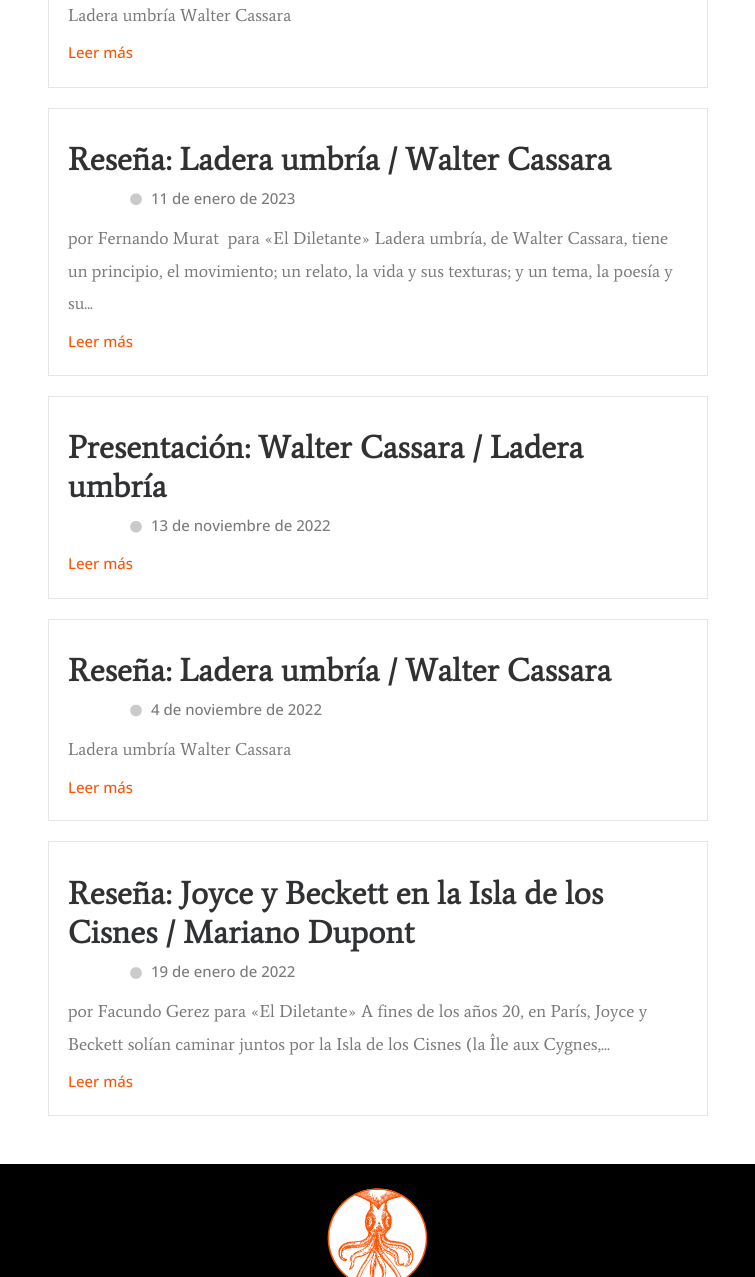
import math
import cairo

surface = cairo.ImageSurface(cairo.FORMAT_RGB24, 755, 1277)
c = cairo.Context(surface)
options = cairo.FontOptions()
options.set_hint_metrics(cairo.HINT_METRICS_OFF)
options.set_hint_style(cairo.HINT_STYLE_NONE)
c.set_font_options(options)
c.set_miter_limit(4)
def C(code):
 c.set_source_rgb(*(v / 255 for v in bytes.fromhex(code[-6:])))
def F(family, size, italic, bold):
 c.select_font_face(family, cairo.FONT_SLANT_ITALIC if italic else cairo.FONT_SLANT_NORMAL, cairo.FONT_WEIGHT_BOLD if bold else cairo.FONT_WEIGHT_NORMAL)
 c.set_font_size(size)
def T(x, y, s):
 c.move_to(x, y)
 c.show_text(s)
def R(x, y, w, h):
 c.rectangle(x, y, w, h)
 c.fill()
def I(path, x, y, w, h):
 c.save()
 c.set_source_surface(cairo.ImageSurface.create_from_png(path), x, y)
 c.rectangle(x, y, w, h)
 c.fill()
 c.restore()
C('ffffff')
c.paint()
c.rectangle(48.5,-.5,659,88)
C('e6e6e6')
c.set_line_width(1)
c.stroke()
F('Average',17.5,0,0)
C('7a7a7a')
T(68,21,'Ladera umbría Walter Cassara')
F('Open Sans Medium',15,0,0)
C('fa5506')
T(68,58,'Leer más')
c.rectangle(48.5,108.5,659,267)
C('e6e6e6')
c.stroke()
F('Average',32.5,0,1)
C('303133')
T(68,170,'Reseña: Ladera umbría / Walter Cassara')
I('1.png',130,193,12,12)
F('Open Sans Medium',15,0,0)
C('7a7a7a')
T(151,204,'11 de enero de 2023')
F('Average',17.5,0,0)
T(68,244,'por Fernando Murat  para «El Diletante» Ladera umbría, de Walter Cassara, tiene')
T(68,277,'un principio, el movimiento; un relato, la vida y sus texturas; y un tema, la poesía y')
T(68,309,'su...')
F('Open Sans Medium',15,0,0)
C('fa5506')
T(68,347,'Leer más')
c.rectangle(48.5,396.5,659,202)
C('e6e6e6')
c.stroke()
F('Average',32.5,0,1)
C('303133')
T(68,458,'Presentación: Walter Cassara / Ladera')
T(68,497,'umbría')
I('2.png',130,521,12,12)
F('Open Sans Medium',15,0,0)
C('7a7a7a')
T(151,531,'13 de noviembre de 2022')
C('fa5506')
T(68,569,'Leer más')
c.rectangle(48.5,619.5,659,201)
C('e6e6e6')
c.stroke()
F('Average',32.5,0,1)
C('303133')
T(68,681,'Reseña: Ladera umbría / Walter Cassara')
I('3.png',130,704,12,13)
F('Open Sans Medium',15,0,0)
C('7a7a7a')
T(151,715,'4 de noviembre de 2022')
F('Average',17.5,0,0)
T(68,755,'Ladera umbría Walter Cassara')
F('Open Sans Medium',15,0,0)
C('fa5506')
T(68,793,'Leer más')
c.rectangle(48.5,841.5,659,274)
C('e6e6e6')
c.stroke()
F('Average',32.5,0,1)
C('303133')
T(68,904,'Reseña: Joyce y Beckett en la Isla de los')
T(68,943,'Cisnes / Mariano Dupont')
I('4.png',130,967,12,12)
F('Open Sans Medium',15,0,0)
C('7a7a7a')
T(151,977,'19 de enero de 2022')
F('Average',17.5,0,0)
T(68,1017,'por Facundo Gerez para «El Diletante» A fines de los años 20, en París, Joyce y')
T(68,1050,'Beckett solían caminar juntos por la Isla de los Cisnes (la Île aux Cygnes,...')
F('Open Sans Medium',15,0,0)
C('fa5506')
T(68,1087,'Leer más')
C('000000')
R(0,1164,755,113)
I('5.png',327,1188,101,89)
surface.write_to_png('o.png')
